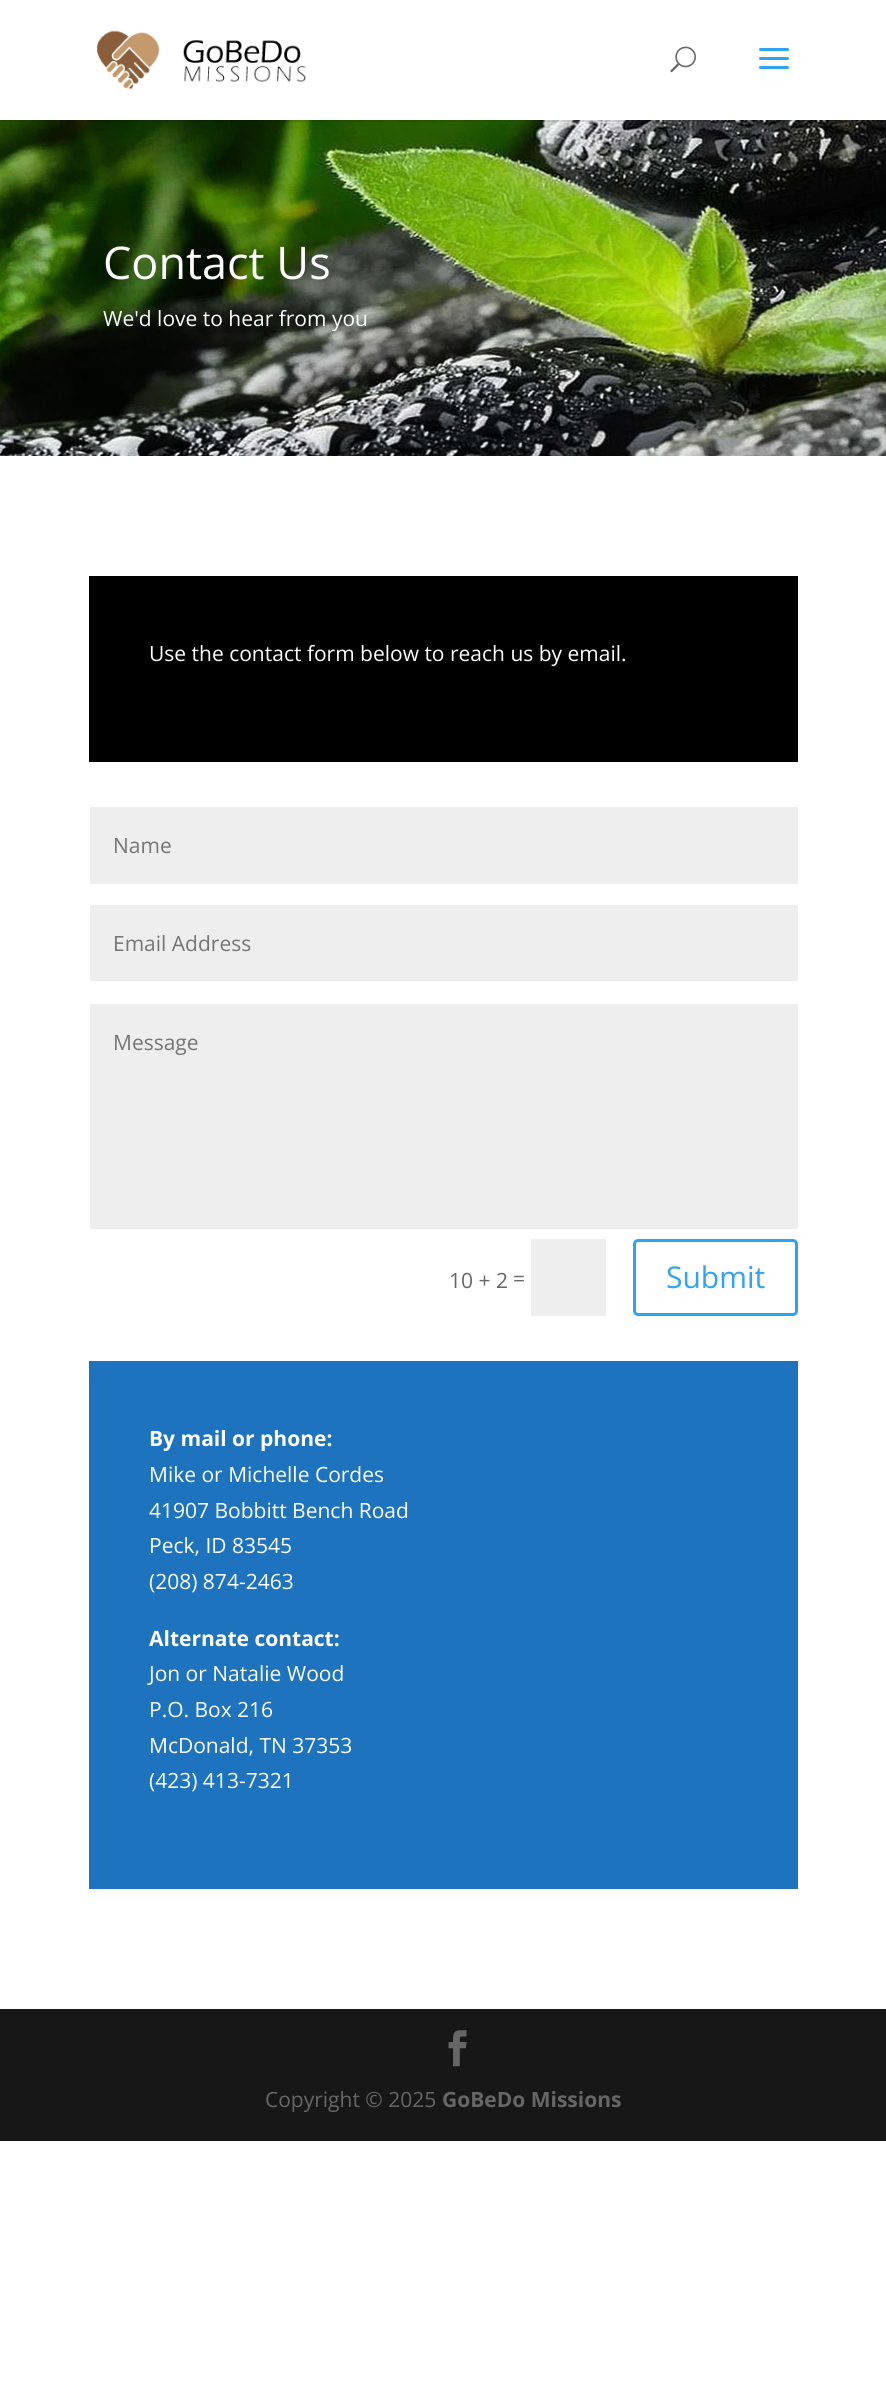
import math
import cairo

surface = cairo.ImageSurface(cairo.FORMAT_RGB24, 886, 2382)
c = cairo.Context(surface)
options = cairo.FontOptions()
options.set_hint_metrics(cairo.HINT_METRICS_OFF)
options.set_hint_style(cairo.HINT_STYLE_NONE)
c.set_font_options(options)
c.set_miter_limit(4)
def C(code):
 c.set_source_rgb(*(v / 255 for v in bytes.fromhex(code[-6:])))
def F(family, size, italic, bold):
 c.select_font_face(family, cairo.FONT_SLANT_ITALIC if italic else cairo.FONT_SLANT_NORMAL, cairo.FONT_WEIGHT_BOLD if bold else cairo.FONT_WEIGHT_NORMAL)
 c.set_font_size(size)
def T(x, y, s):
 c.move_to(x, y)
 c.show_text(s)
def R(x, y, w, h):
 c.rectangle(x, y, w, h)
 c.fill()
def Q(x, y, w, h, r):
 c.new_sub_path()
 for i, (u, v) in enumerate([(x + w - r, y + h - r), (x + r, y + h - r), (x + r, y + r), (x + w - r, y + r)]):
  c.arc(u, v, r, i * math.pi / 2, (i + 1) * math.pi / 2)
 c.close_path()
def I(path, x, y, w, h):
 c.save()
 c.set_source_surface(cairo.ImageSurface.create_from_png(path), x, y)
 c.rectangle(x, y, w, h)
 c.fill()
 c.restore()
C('ffffff')
c.paint()
I('4.png',0,120,886,336)
c.set_source_rgba(0,0,0,0.1)
c.new_path()
c.move_to(0,120)
c.line_to(0,122)
c.line_to(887,122)
c.line_to(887,2)
c.line_to(886,2)
c.line_to(886,120)
c.close_path()
c.fill()
I('1.png',97,30,209,59)
I('2.png',670,46,26,27)
I('3.png',759,48,30,21)
F('Open Sans',45,0,0)
C('ffffff')
T(103,279,'Contact Us')
F('Open Sans',21,0,0)
T(103,326,'We\'d love to hear from you')
C('000000')
R(89,576,709,186)
C('ffffff')
T(149,661,'Use the contact form below to reach us by email.')
C('eeeeee')
R(90,807,708,77)
C('757575')
T(113,853,'Name')
C('eeeeee')
R(90,905,708,76)
C('757575')
T(113,951,'Email Address')
C('eeeeee')
R(90,1004,708,225)
C('757575')
T(113,1050,'Message')
C('666666')
T(449,1288,'10 + 2')
T(513,1286,'=')
C('eeeeee')
R(531,1239,75,77)
Q(634.5,1240.5,162,74,3.5)
C('2ea3f2')
c.set_line_width(3)
c.stroke()
F('Open Sans',30,0,0)
T(666,1288,'Submit')
C('1e73be')
R(89,1361,709,528)
F('Open Sans',21,0,1)
C('ffffff')
T(149,1446,'By mail or phone:')
F('Open Sans',21,0,0)
T(149,1482,'Mike or Michelle Cordes')
T(149,1518,'41907 Bobbitt Bench Road')
T(149,1553,'Peck, ID 83545')
T(149,1589,'(208) 874-2463')
F('Open Sans',21,0,1)
T(149,1646,'Alternate contact:')
F('Open Sans',21,0,0)
T(149,1681,'Jon or Natalie Wood')
T(149,1717,'P.O. Box 216')
T(149,1753,'McDonald, TN 37353')
T(149,1788,'(423) 413-7321')
C('171717')
R(0,2009,886,132)
I('5.png',448,2030,19,37)
C('666666')
T(265,2107,'Copyright © 2025')
F('Open Sans',21,0,1)
T(442,2107,'GoBeDo Missions')
surface.write_to_png('o.png')
